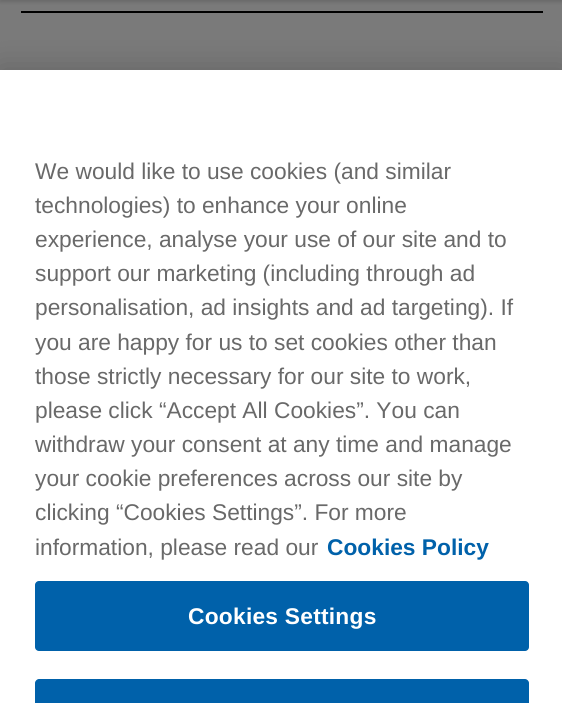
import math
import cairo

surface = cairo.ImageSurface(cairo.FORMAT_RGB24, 562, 703)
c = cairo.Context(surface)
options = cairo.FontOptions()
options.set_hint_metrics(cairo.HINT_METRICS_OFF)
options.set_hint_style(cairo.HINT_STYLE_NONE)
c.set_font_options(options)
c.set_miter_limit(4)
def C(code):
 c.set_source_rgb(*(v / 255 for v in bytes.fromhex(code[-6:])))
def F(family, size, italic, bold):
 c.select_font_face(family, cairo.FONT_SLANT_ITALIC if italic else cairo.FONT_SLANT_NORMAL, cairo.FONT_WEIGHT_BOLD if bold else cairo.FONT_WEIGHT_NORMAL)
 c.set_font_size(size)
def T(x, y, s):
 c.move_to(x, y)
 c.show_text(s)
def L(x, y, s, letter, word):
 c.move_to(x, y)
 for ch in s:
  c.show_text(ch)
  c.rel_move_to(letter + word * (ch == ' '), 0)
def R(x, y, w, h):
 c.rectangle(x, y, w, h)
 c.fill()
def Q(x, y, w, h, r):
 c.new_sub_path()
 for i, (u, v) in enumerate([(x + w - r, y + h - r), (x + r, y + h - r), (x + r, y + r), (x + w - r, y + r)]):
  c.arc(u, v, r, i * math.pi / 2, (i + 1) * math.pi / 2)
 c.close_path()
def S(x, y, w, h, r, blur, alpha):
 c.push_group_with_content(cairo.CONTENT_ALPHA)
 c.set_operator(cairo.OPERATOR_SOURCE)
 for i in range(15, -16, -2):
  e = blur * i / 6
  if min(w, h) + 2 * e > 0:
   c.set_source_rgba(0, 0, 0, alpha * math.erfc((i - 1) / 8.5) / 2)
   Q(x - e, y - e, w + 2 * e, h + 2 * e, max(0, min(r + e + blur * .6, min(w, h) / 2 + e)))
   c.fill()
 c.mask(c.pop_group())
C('7a7a7a')
c.paint()
C('000000')
S(0,-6,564,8,0,2,.15)
C('000000')
R(21,11,522,2)
C('000000')
S(0,70,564,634,0,16,.2)
C('ffffff')
R(0,70,562,633)
F('Liberation Sans',22.75,0,0)
C('696969')
T(35,179,'We would like to use cookies (and similar')
T(35,213,'technologies) to enhance your online')
T(35,247,'experience, analyse your use of our site and to')
T(35,281,'support our marketing (including through ad')
T(35,315,'personalisation, ad insights and ad targeting). If')
T(35,350,'you are happy for us to set cookies other than')
T(35,384,'those strictly necessary for our site to work,')
T(35,418,'please click “Accept All Cookies”. You can')
T(35,452,'withdraw your consent at any time and manage')
T(35,486,'your cookie preferences across our site by')
T(35,520,'clicking “Cookies Settings”. For more')
T(35,555,'information, please read our')
F('Liberation Sans',22.75,0,1)
C('0061aa')
T(327,555,'Cookies Policy')
Q(35,581,494,70,4)
c.fill()
C('ffffff')
L(188,624,'Cookies Settings',.25,0)
C('0061aa')
c.new_path()
c.move_to(39,679)
c.line_to(525,679)
c.curve_to(527,679,529,681,529,683)
c.line_to(529,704)
c.line_to(35,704)
c.line_to(35,683)
c.curve_to(35,681,37,679,39,679)
c.close_path()
c.fill()
surface.write_to_png('o.png')
